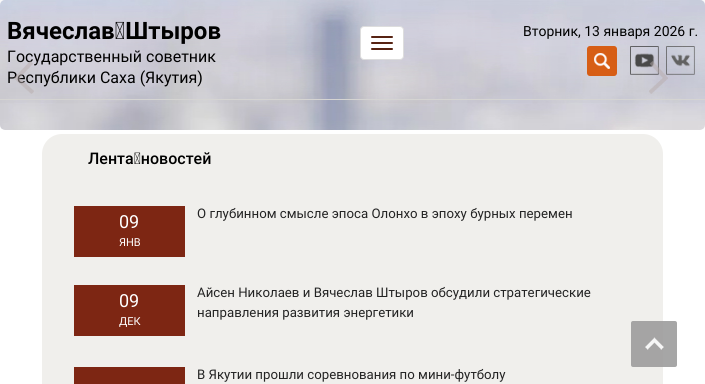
import math
import cairo

surface = cairo.ImageSurface(cairo.FORMAT_RGB24, 705, 384)
c = cairo.Context(surface)
options = cairo.FontOptions()
options.set_hint_metrics(cairo.HINT_METRICS_OFF)
options.set_hint_style(cairo.HINT_STYLE_NONE)
c.set_font_options(options)
c.set_miter_limit(4)
def C(code):
 c.set_source_rgb(*(v / 255 for v in bytes.fromhex(code[-6:])))
def F(family, size, italic, bold):
 c.select_font_face(family, cairo.FONT_SLANT_ITALIC if italic else cairo.FONT_SLANT_NORMAL, cairo.FONT_WEIGHT_BOLD if bold else cairo.FONT_WEIGHT_NORMAL)
 c.set_font_size(size)
def T(x, y, s):
 c.move_to(x, y)
 c.show_text(s)
def R(x, y, w, h):
 c.rectangle(x, y, w, h)
 c.fill()
def Q(x, y, w, h, r):
 c.new_sub_path()
 for i, (u, v) in enumerate([(x + w - r, y + h - r), (x + r, y + h - r), (x + r, y + r), (x + w - r, y + r)]):
  c.arc(u, v, r, i * math.pi / 2, (i + 1) * math.pi / 2)
 c.close_path()
def I(path, x, y, w, h):
 c.save()
 c.set_source_surface(cairo.ImageSurface.create_from_png(path), x, y)
 c.rectangle(x, y, w, h)
 c.fill()
 c.restore()
C('ffffff')
c.paint()
I('1.png',0,0,705,130)
I('4.png',0,0,705,103)
F('Roboto',16,0,0)
C('000000')
T(7,62,'Государственный советник')
T(7,83,'Республики Саха (Якутия)')
I('2.png',14,61,20,33)
I('6.png',630,46,29,29)
I('7.png',666,46,29,29)
I('3.png',649,61,19,33)
C('d5d4d2')
R(0,99,705,1)
F('Roboto',24,0,1)
C('000000')
T(7,39,'Вячеслав Штыров')
C('ffffff')
Q(360.5,26.5,43,33,3.5)
c.fill_preserve()
C('dddddd')
c.set_line_width(1)
c.stroke()
C('572313')
Q(371,36,22,2,1)
c.fill()
Q(371,42,22,2,1)
c.fill()
Q(371,48,22,2,1)
c.fill()
F('Roboto',14,0,0)
C('000000')
T(523,36,'Вторник, 13 января 2026 г.')
I('5.png',587,46,30,30)
C('f0efec')
Q(42,134,621,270,20)
c.fill()
F('Roboto Medium',16,0,0)
C('000000')
T(88,164,'Лента новостей')
C('7d2613')
R(74,206,111,51)
F('Roboto',18,0,0)
C('ffffff')
T(119,228,'09')
F('Roboto',11,0,0)
T(119,246,'ЯНВ')
F('Roboto',13.25,0,0)
C('232323')
T(197,218,'О глубинном смысле эпоса Олонхо в эпоху бурных перемен')
C('7d2613')
R(74,285,111,51)
F('Roboto',18,0,0)
C('ffffff')
T(119,307,'09')
F('Roboto',11,0,0)
T(119,325,'ДЕК')
F('Roboto',13.25,0,0)
C('232323')
T(197,297,'Айсен Николаев и Вячеслав Штыров обсудили стратегические')
T(197,317,'направления развития энергетики')
C('7d2613')
R(74,367,111,17)
C('232323')
T(197,379,'В Якутии прошли соревнования по мини-футболу')
c.set_source_rgba(0.616,0.616,0.616,0.9)
Q(631,321,46,46,2)
c.fill()
I('8.png',645,337,19,13)
surface.write_to_png('o.png')
